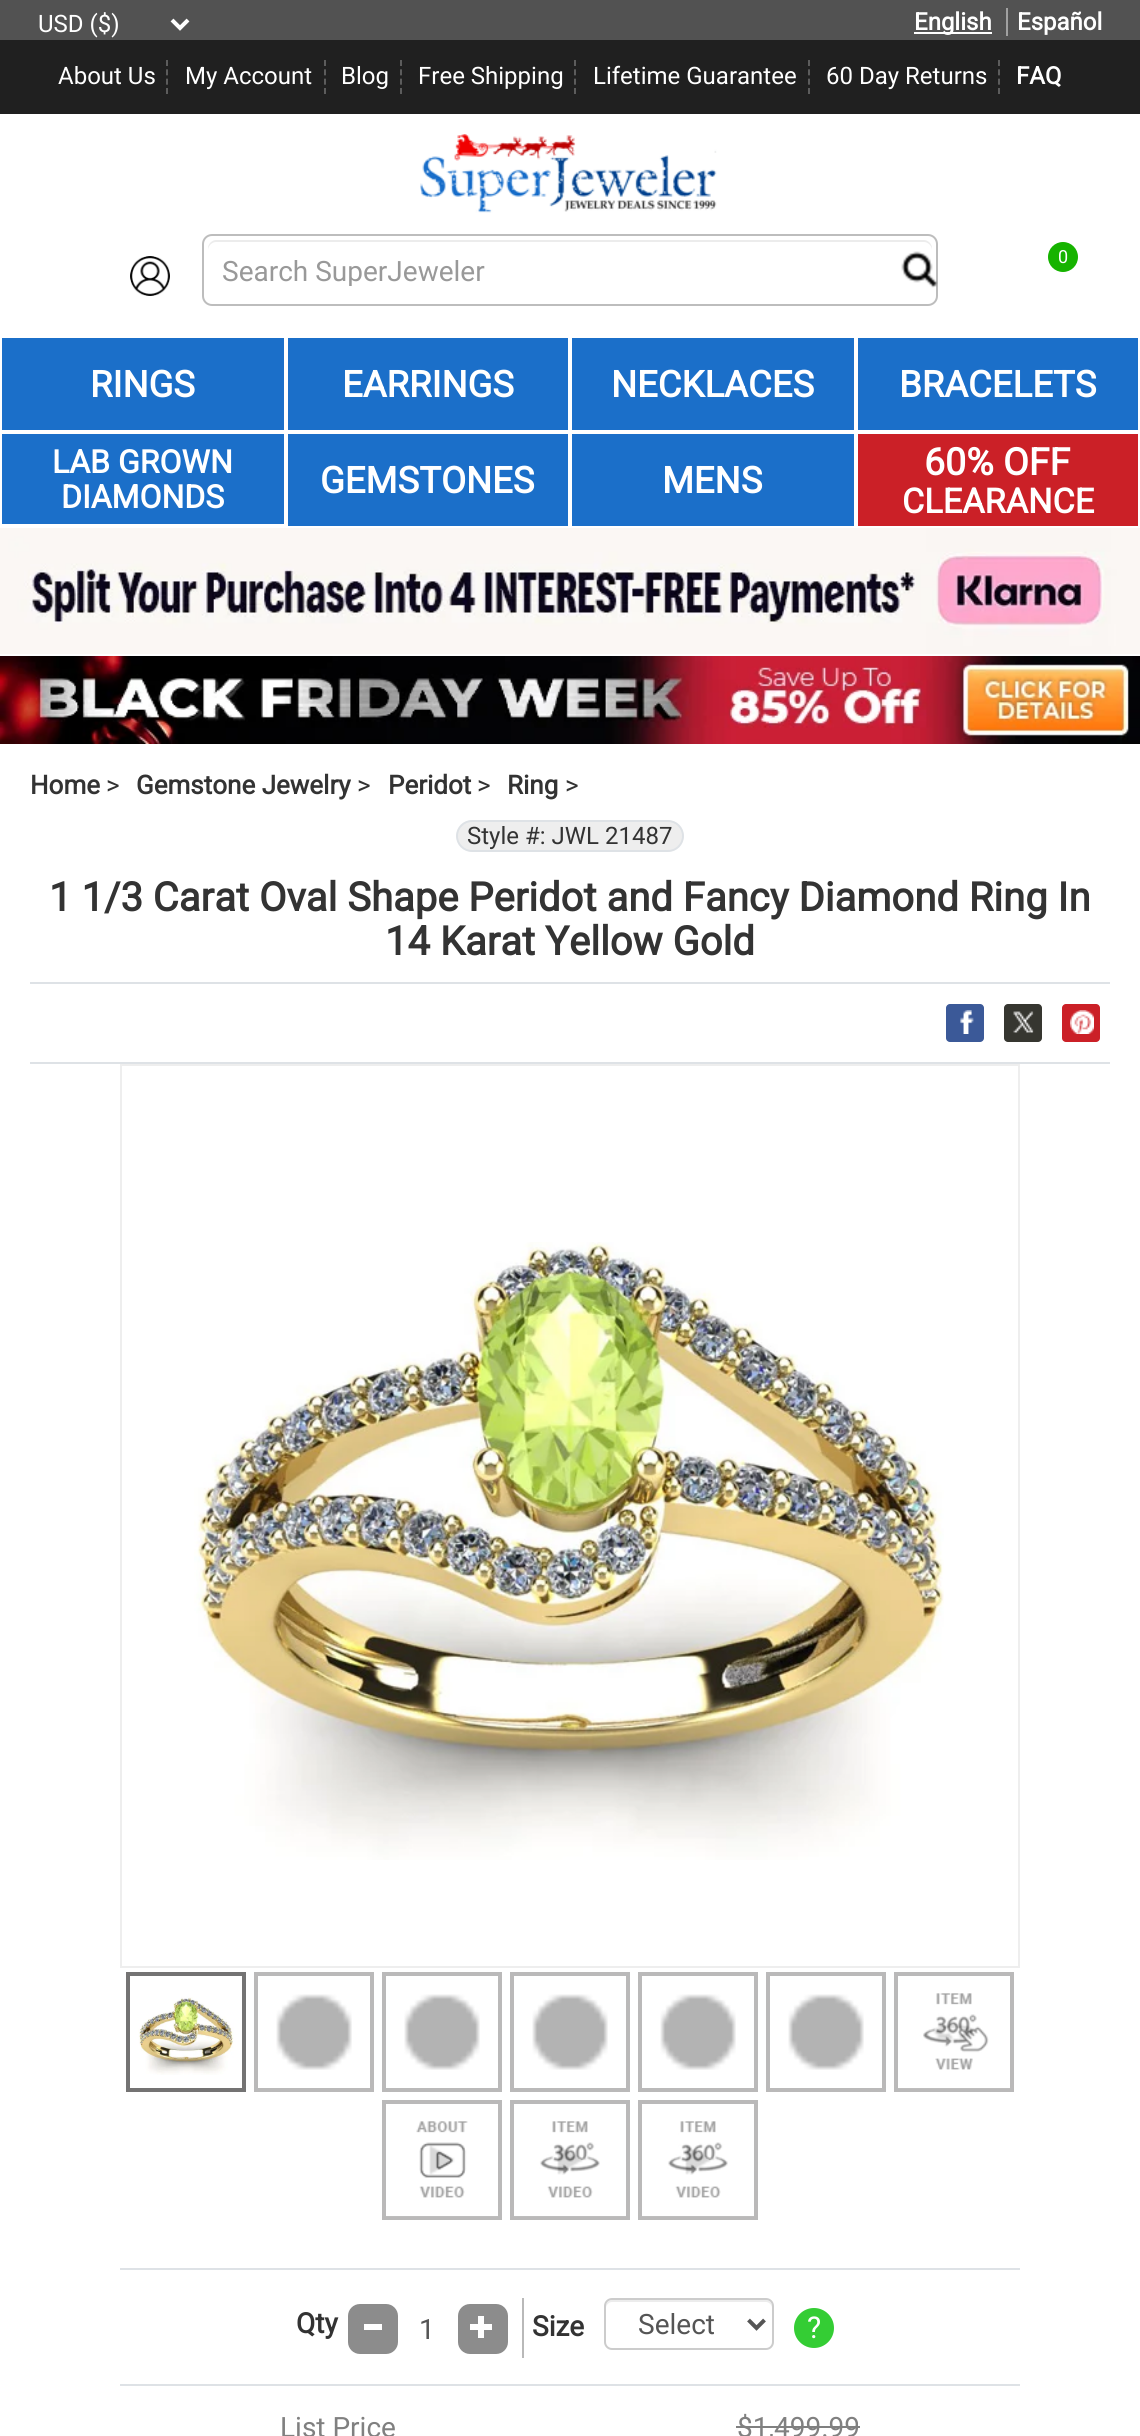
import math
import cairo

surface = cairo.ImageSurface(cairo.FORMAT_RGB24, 1140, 2436)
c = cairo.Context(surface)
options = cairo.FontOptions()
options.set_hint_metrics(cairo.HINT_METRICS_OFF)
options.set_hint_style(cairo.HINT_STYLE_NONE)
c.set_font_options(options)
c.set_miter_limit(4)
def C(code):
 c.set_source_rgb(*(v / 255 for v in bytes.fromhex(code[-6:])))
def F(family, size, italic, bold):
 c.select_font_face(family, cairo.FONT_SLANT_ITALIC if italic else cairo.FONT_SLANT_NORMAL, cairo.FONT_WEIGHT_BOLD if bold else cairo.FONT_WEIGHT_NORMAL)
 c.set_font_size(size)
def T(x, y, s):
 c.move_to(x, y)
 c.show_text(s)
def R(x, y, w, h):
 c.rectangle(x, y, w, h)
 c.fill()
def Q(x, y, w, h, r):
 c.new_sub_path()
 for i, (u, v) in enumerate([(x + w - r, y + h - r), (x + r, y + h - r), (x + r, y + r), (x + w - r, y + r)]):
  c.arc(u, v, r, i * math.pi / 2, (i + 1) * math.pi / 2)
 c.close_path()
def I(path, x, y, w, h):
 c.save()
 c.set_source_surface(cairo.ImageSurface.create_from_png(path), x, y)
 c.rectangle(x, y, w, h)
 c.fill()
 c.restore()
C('ffffff')
c.paint()
C('525252')
R(0,0,1140,40)
c.new_path()
c.move_to(172,20)
c.line_to(180,28)
c.line_to(188,20)
C('ffffff')
c.set_line_width(4)
c.stroke()
F('Roboto',24,0,0)
T(38,32,'USD ($)')
R(914,32,78,2)
F('Roboto',24,0,1)
T(914,30,'English')
T(1017,30,'Español')
C('a1a1a1')
R(1006,8,2,28)
C('202020')
R(0,40,1140,74)
c.new_path()
c.move_to(167,60)
c.line_to(167,94)
C('5c5c5c')
c.set_line_width(2)
c.set_dash([6,3.34])
c.stroke()
F('Roboto',24,0,0)
C('ffffff')
T(58,84,'About Us')
c.new_path()
c.move_to(325,60)
c.line_to(325,94)
C('5c5c5c')
c.stroke()
C('ffffff')
T(185,84,'My Account')
c.new_path()
c.move_to(401,60)
c.line_to(401,94)
C('5c5c5c')
c.stroke()
C('ffffff')
T(341,84,'Blog')
c.new_path()
c.move_to(575,60)
c.line_to(575,94)
C('5c5c5c')
c.stroke()
C('ffffff')
T(418,84,'Free Shipping')
c.new_path()
c.move_to(809,60)
c.line_to(809,94)
C('5c5c5c')
c.stroke()
C('ffffff')
T(593,84,'Lifetime Guarantee')
c.new_path()
c.move_to(999,60)
c.line_to(999,94)
C('5c5c5c')
c.stroke()
C('ffffff')
T(826,84,'60 Day Returns')
F('Roboto',24,0,1)
T(1016,84,'FAQ')
I('1.png',420,134,297,79)
I('2.png',130,256,40,40)
Q(203,235,734,70,9)
C('bdbdbd')
c.set_dash([])
c.stroke()
C('ececec')
c.new_path()
c.move_to(216,242)
c.line_to(924,242)
c.curve_to(928,242,932,246,932,250)
c.line_to(932,248)
c.curve_to(932,244,928,240,924,240)
c.line_to(216,240)
c.curve_to(212,240,208,244,208,248)
c.line_to(208,250)
c.curve_to(208,246,212,242,216,242)
c.close_path()
c.fill()
c.save()
c.rectangle(222,254,646,32)
c.clip()
F('Roboto',28,0,0)
C('999999')
T(222,281,'Search SuperJeweler')
c.restore()
I('3.png',901,251,37,37)
C('16b300')
c.arc(1063,257,15,0,2 * math.pi)
c.fill()
F('Roboto',18,0,0)
C('ffffff')
T(1058,263,'0')
C('1b6fc9')
R(2,338,282,92)
F('Roboto',36.5,0,1)
C('ffffff')
T(90,397,'RINGS')
C('1b6fc9')
R(288,338,280,92)
C('ffffff')
T(342,397,'EARRINGS')
C('1b6fc9')
R(572,338,282,92)
C('ffffff')
T(611,397,'NECKLACES')
C('1b6fc9')
R(858,338,280,92)
C('ffffff')
T(899,397,'BRACELETS')
C('1b6fc9')
R(2,434,282,90)
F('Roboto',32,0,1)
C('ffffff')
T(52,473,'LAB GROWN')
T(61,508,'DIAMONDS')
C('1b6fc9')
R(288,434,280,92)
F('Roboto',36.5,0,1)
C('ffffff')
T(320,493,'GEMSTONES')
C('1b6fc9')
R(572,434,282,92)
C('ffffff')
T(662,493,'MENS')
C('cb2027')
R(858,434,280,92)
F('Roboto',37.5,0,1)
C('ffffff')
T(924,475,'60% OFF')
F('Roboto',34.25,0,1)
T(902,513,'CLEARANCE')
I('4.png',0,528,1140,126)
I('5.png',0,656,1140,88)
F('Roboto',26,0,1)
C('333333')
T(30,794,'Home')
F('Roboto',26,0,0)
T(106,794,'>')
F('Roboto',26,0,1)
T(136,794,'Gemstone Jewelry')
F('Roboto',26,0,0)
T(357,794,'>')
F('Roboto',26,0,1)
T(388,794,'Peridot')
F('Roboto',26,0,0)
T(477,794,'>')
F('Roboto',26,0,1)
T(507,794,'Ring')
F('Roboto',26,0,0)
T(565,794,'>')
C('eeeeee')
Q(457,821,226,30,15)
c.fill_preserve()
C('dee2e6')
c.stroke()
F('Roboto',24,0,0)
C('333333')
T(467,844,'Style #: JWL 21487')
F('Roboto',40,0,1)
T(49,911,'1 1/3 Carat Oval Shape Peridot and Fancy Diamond Ring In')
T(385,955,'14 Karat Yellow Gold')
C('dee2e6')
R(30,982,1080,2)
R(30,1062,1080,2)
C('3b5998')
Q(946,1004,38,38,4)
c.fill()
I('6.png',960,1010,14,24)
C('363630')
Q(1004,1004,38,38,4)
c.fill()
I('7.png',1013,1011,21,22)
C('cb2027')
Q(1062,1004,38,38,4)
c.fill()
I('8.png',1070,1010,24,24)
c.rectangle(121,1065,898,902)
C('eeeeee')
c.stroke()
I('9.png',194,1242,750,618)
c.rectangle(128,1974,116,116)
C('747373')
c.set_line_width(4)
c.stroke()
I('10.png',138,1994,96,81)
I('11.png',276,1994,76,76)
c.rectangle(256,1974,116,116)
C('bab9b9')
c.stroke()
I('11.png',404,1994,76,76)
c.rectangle(384,1974,116,116)
c.stroke()
I('11.png',532,1994,76,76)
c.rectangle(512,1974,116,116)
c.stroke()
I('11.png',660,1994,76,76)
c.rectangle(640,1974,116,116)
c.stroke()
I('11.png',788,1994,76,76)
c.rectangle(768,1974,116,116)
c.stroke()
I('12.png',933,2023,42,18)
c.rectangle(896,1974,116,116)
c.stroke()
I('13.png',898,1993,112,96)
I('14.png',429,2145,26,30)
c.rectangle(384,2102,116,116)
c.stroke()
I('15.png',386,2121,112,96)
I('14.png',557,2145,26,30)
c.rectangle(512,2102,116,116)
c.stroke()
I('16.png',514,2121,112,96)
I('14.png',685,2145,26,30)
c.rectangle(640,2102,116,116)
c.stroke()
I('16.png',642,2121,112,96)
C('dee2e6')
R(120,2268,900,2)
R(120,2384,900,2)
F('Roboto',28,0,1)
C('333333')
T(296,2333,'Qty')
C('8c8c8c')
Q(348,2304,50,50,12)
c.fill()
C('ffffff')
R(364,2324,18,6)
F('Roboto',28,0,0)
C('555555')
T(419,2339,'1')
C('8c8c8c')
Q(458,2304,50,50,12)
c.fill()
I('17.png',470,2316,22,22)
C('b9b9b9')
R(522,2298,2,60)
F('Roboto',28,0,1)
C('333333')
T(532,2336,'Size')
C('ececec')
c.new_path()
c.move_to(612,2302)
c.line_to(766,2302)
c.curve_to(769,2302,772,2305,772,2308)
c.line_to(772,2306)
c.curve_to(772,2303,769,2300,766,2300)
c.line_to(612,2300)
c.curve_to(609,2300,606,2303,606,2306)
c.line_to(606,2308)
c.curve_to(606,2305,609,2302,612,2302)
c.close_path()
c.fill()
Q(605,2299,168,50,7)
C('cccccc')
c.set_line_width(2)
c.stroke()
c.new_path()
c.move_to(748.5,2320)
c.line_to(756.5,2328)
c.line_to(764.5,2320)
C('555555')
c.set_line_width(4)
c.stroke()
F('Roboto',28,0,0)
T(638,2334,'Select')
C('34cd34')
c.new_path()
c.arc(814,2328,20,0,2 * math.pi)
c.fill()
F('Roboto',30,0,0)
C('ffffff')
T(807,2338,'?')
F('Roboto',28,0,0)
C('808080')
T(280,2437,'List Price')
T(737,2437,'$1,499.99')
R(736,2426,124,2)
surface.write_to_png('o.png')
